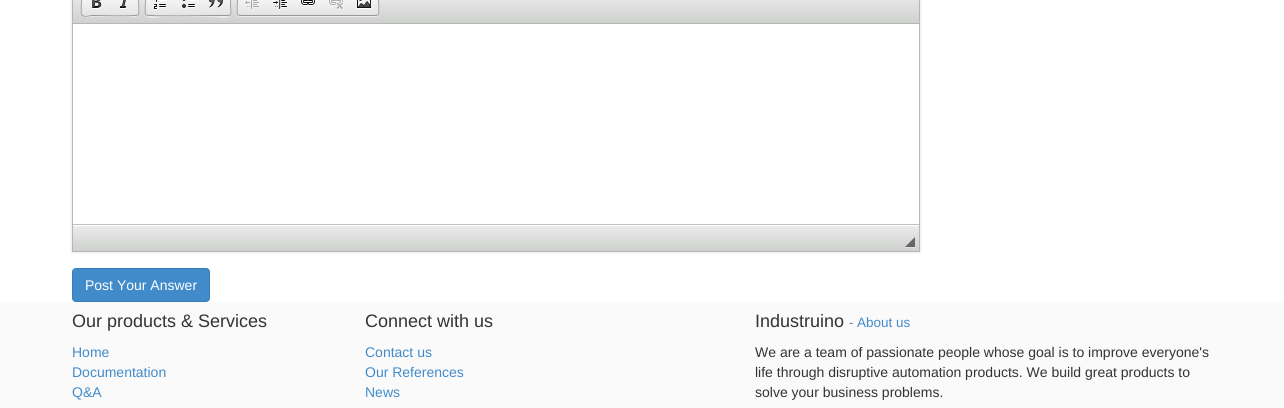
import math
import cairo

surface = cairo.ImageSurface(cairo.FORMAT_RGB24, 1284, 408)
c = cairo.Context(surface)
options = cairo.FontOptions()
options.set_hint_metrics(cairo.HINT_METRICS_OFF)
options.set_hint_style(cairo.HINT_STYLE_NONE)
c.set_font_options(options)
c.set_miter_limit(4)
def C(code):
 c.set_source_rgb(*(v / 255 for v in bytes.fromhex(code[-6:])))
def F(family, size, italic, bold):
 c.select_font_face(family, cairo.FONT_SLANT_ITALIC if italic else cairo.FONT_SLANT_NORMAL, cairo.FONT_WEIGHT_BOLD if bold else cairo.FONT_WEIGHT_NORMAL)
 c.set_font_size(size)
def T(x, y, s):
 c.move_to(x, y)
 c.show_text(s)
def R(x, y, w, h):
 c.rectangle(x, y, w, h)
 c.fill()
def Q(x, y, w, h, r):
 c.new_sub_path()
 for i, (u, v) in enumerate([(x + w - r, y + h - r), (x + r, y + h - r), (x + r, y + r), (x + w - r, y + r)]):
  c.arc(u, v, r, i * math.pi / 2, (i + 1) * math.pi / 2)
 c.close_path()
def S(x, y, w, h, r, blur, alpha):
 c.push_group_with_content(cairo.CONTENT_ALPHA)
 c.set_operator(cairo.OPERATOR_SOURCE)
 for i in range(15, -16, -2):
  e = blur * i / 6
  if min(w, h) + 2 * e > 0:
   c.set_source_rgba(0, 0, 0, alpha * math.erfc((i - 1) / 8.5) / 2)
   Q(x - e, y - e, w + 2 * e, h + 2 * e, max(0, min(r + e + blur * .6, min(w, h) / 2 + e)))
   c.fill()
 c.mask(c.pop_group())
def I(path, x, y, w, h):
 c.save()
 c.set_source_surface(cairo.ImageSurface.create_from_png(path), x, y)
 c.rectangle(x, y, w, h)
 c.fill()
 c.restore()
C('ffffff')
c.paint()
c.save()
c.set_fill_rule(cairo.FILL_RULE_EVEN_ODD)
c.new_path()
c.move_to(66,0)
c.line_to(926,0)
c.line_to(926,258)
c.line_to(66,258)
c.close_path()
c.move_to(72,-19)
c.line_to(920,-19)
c.line_to(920,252)
c.line_to(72,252)
c.close_path()
c.clip()
C('000000')
S(72,-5,848,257,0,1.5,.15)
c.restore()
c.rectangle(72.5,-.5,847,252)
C('b6b6b6')
c.set_line_width(1)
c.stroke()
gradient = cairo.LinearGradient(496,-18,496,23)
gradient.add_color_stop_rgba(0,0.961,0.961,0.961,1)
gradient.add_color_stop_rgba(1,0.812,0.82,0.812,1)
c.set_source(gradient)
R(73,0,846,23)
C('b6b6b6')
R(73,23,846,1)
C('eaebea')
c.new_path()
c.move_to(81,13)
c.curve_to(81,19,88,17,93,17)
c.line_to(127,17)
c.curve_to(132,17,139,19,139,13)
c.curve_to(139,15,138,16,136,16)
c.line_to(84,16)
c.curve_to(82,16,81,15,81,13)
c.close_path()
c.fill()
c.save()
Q(81,-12,58,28,3)
c.clip()
gradient = cairo.LinearGradient(110,-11,110,15)
gradient.add_color_stop_rgba(0,1,1,1,1)
gradient.add_color_stop_rgba(1,0.894,0.894,0.894,1)
c.set_source(gradient)
R(81,0,58,15)
gradient = cairo.LinearGradient(110,15,110,41)
gradient.add_color_stop_rgba(0,1,1,1,1)
gradient.add_color_stop_rgba(1,0.894,0.894,0.894,1)
c.set_source(gradient)
R(81,15,58,1)
c.restore()
c.new_path()
c.move_to(138,15)
c.curve_to(136,16.5,98,15.5,92.5,15.5)
c.curve_to(89,15.5,84.5,17.5,82,15)
C('979797')
c.stroke()
c.new_path()
c.move_to(82,15)
c.curve_to(80.5,13,81.5,4.5,81.5,2)
c.curve_to(81.5,-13,78.5,-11.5,92.5,-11.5)
c.line_to(127.5,-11.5)
c.curve_to(141.5,-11.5,138.5,-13,138.5,2)
c.curve_to(138.5,4.5,139.5,13,138,15)
C('a6a6a6')
c.stroke()
I('1.png',92,0,10,9)
I('2.png',119,0,7,9)
C('eaebea')
c.new_path()
c.move_to(145,13)
c.curve_to(145,21,158,17,161,17)
c.line_to(215,17)
c.curve_to(218,17,231,21,231,13)
c.curve_to(231,15,230,16,228,16)
c.line_to(148,16)
c.curve_to(146,16,145,15,145,13)
c.close_path()
c.fill()
c.save()
Q(145,-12,86,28,3)
c.clip()
gradient = cairo.LinearGradient(188,-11,188,15)
gradient.add_color_stop_rgba(0,1,1,1,1)
gradient.add_color_stop_rgba(1,0.894,0.894,0.894,1)
c.set_source(gradient)
R(145,0,86,15)
gradient = cairo.LinearGradient(188,15,188,41)
gradient.add_color_stop_rgba(0,1,1,1,1)
gradient.add_color_stop_rgba(1,0.894,0.894,0.894,1)
c.set_source(gradient)
R(145,15,86,1)
c.restore()
c.new_path()
c.move_to(230,15)
c.line_to(228,15.5)
c.line_to(214.5,15.5)
c.curve_to(207.5,15.5,148.5,16.5,146.5,15)
c.line_to(146,15)
C('979797')
c.stroke()
c.new_path()
c.move_to(146,15)
c.curve_to(144.5,13,145.5,4.5,145.5,2)
c.curve_to(145.5,-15,143,-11.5,161.5,-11.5)
c.line_to(214.5,-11.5)
c.curve_to(234.5,-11.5,230.5,-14.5,230.5,5.5)
c.curve_to(230.5,8,232,12.5,230,15)
C('a6a6a6')
c.stroke()
I('3.png',154,0,12,10)
I('4.png',182,0,13,9)
I('5.png',209,0,15,8)
C('eaebea')
c.new_path()
c.move_to(237,13)
c.line_to(237,14)
c.curve_to(237,16,238,17,240,17)
c.line_to(376,17)
c.curve_to(378,17,379,16,379,14)
c.line_to(379,13)
c.curve_to(379,15,378,16,376,16)
c.line_to(240,16)
c.curve_to(238,16,237,15,237,13)
c.close_path()
c.fill()
c.save()
Q(237,-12,142,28,3)
c.clip()
gradient = cairo.LinearGradient(308,-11,308,15)
gradient.add_color_stop_rgba(0,1,1,1,1)
gradient.add_color_stop_rgba(1,0.894,0.894,0.894,1)
c.set_source(gradient)
R(237,0,142,15)
c.restore()
c.new_path()
c.move_to(378,15)
c.line_to(376,15.5)
c.line_to(240,15.5)
c.line_to(238,15)
C('979797')
c.stroke()
c.new_path()
c.move_to(238,15)
c.curve_to(236.5,13,237.5,4.5,237.5,2)
c.line_to(237.5,-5.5)
c.curve_to(237.5,-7,237,-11.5,240,-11.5)
c.line_to(376,-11.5)
c.curve_to(379,-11.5,378.5,-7,378.5,-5.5)
c.line_to(378.5,2)
c.curve_to(378.5,4.5,379.5,13,378,15)
C('a6a6a6')
c.stroke()
I('6.png',245,0,14,10)
I('7.png',273,0,14,10)
I('8.png',301,0,14,6)
I('9.png',329,0,14,10)
I('10.png',357,0,14,9)
gradient = cairo.LinearGradient(496,225,496,251)
gradient.add_color_stop_rgba(0,0.922,0.922,0.922,1)
gradient.add_color_stop_rgba(1,0.812,0.82,0.812,1)
c.set_source(gradient)
R(73,226,846,25)
C('bfbfbf')
R(73,224,846,1)
C('e0e2e0')
R(905,247,10,1)
C('666666')
c.new_path()
c.move_to(915,237)
c.line_to(915,247)
c.line_to(905,247)
c.close_path()
c.fill()
C('428bca')
Q(72.5,268.5,137,33,3.5)
c.fill_preserve()
C('357ebd')
c.stroke()
F('Liberation Sans',14,0,0)
C('ffffff')
T(85,290,'Post Your Answer')
C('fafafa')
R(0,302,1284,106)
F('Liberation Sans',18,0,0)
C('333333')
T(72,327,'Our products & Services')
F('Liberation Sans',14,0,0)
C('428bca')
T(72,357,'Home')
T(72,377,'Documentation')
T(72,397,'Q&A')
F('Liberation Sans',18,0,0)
C('333333')
T(365,327,'Connect with us')
F('Liberation Sans',14,0,0)
C('428bca')
T(365,357,'Contact us')
T(365,377,'Our References')
T(365,397,'News')
F('Liberation Sans',18,0,0)
C('333333')
T(755,327,'Industruino')
F('Liberation Sans',13.5,0,0)
C('777777')
T(849,327,'-')
C('428bca')
T(857,327,'About us')
F('Liberation Sans',14,0,0)
C('333333')
T(755,357,'We are a team of passionate people whose goal is to improve everyone\'s')
T(755,377,'life through disruptive automation products. We build great products to')
T(755,397,'solve your business problems.')
surface.write_to_png('o.png')
